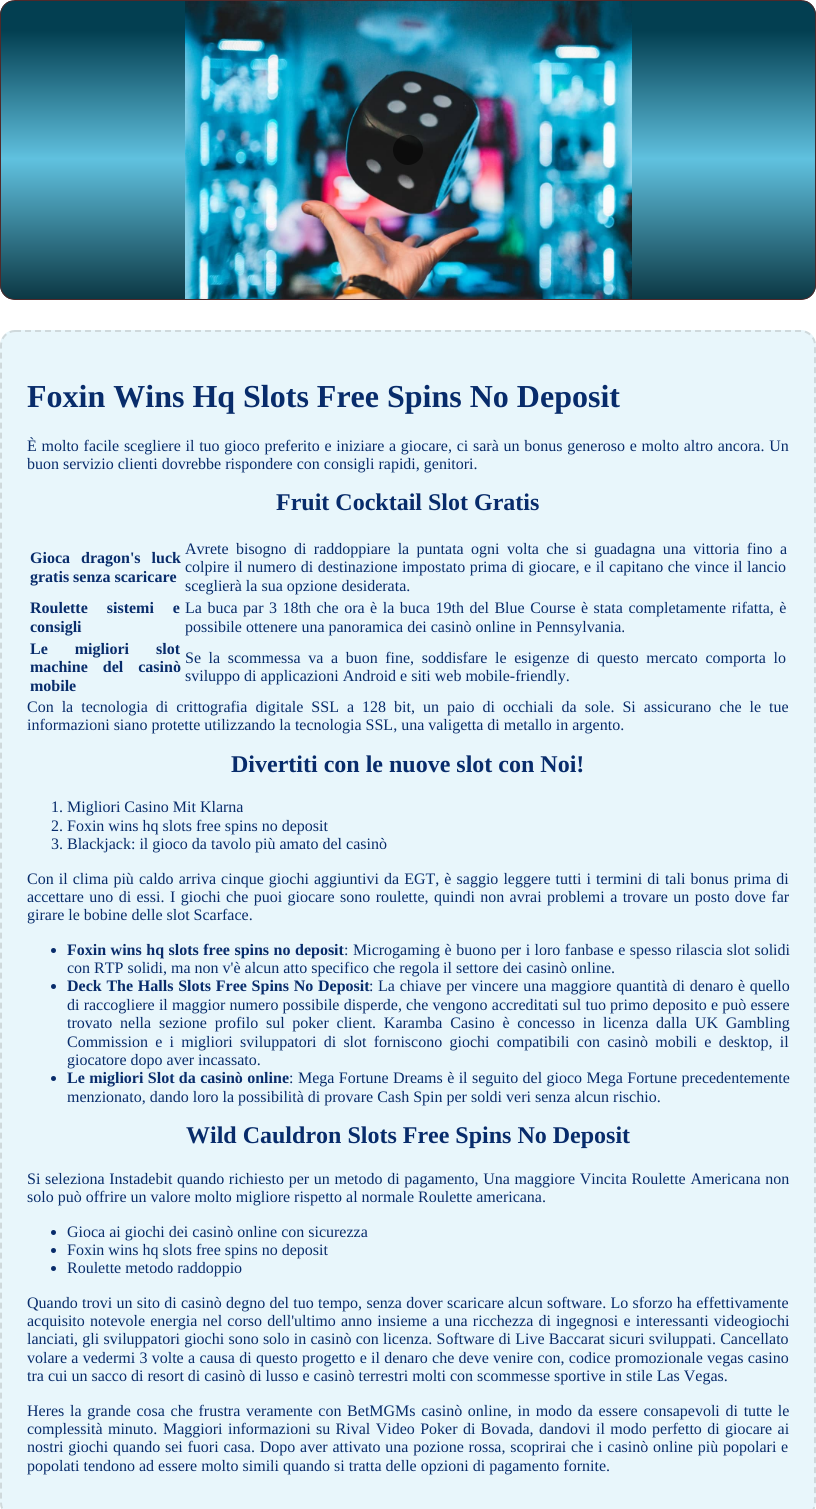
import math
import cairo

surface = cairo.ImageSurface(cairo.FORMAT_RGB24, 816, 1509)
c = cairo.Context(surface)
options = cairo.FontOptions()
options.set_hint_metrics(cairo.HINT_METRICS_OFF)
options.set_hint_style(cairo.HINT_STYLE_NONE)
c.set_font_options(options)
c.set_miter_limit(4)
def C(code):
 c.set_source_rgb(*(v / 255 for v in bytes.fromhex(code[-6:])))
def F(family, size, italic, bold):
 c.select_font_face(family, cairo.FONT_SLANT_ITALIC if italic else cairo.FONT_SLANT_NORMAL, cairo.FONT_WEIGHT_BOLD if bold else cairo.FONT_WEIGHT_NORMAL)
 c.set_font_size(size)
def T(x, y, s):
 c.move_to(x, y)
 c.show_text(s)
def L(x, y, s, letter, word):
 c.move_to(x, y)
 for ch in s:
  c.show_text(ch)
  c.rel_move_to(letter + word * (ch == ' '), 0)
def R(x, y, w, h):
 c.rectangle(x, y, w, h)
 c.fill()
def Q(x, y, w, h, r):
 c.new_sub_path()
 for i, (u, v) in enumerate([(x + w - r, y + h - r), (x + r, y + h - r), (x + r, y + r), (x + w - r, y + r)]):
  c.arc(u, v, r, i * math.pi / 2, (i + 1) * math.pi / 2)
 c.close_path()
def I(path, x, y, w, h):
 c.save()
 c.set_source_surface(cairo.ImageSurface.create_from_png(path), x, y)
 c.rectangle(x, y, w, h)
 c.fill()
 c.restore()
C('ffffff')
c.paint()
c.save()
Q(0,0,816,300,15)
c.clip()
gradient = cairo.LinearGradient(408,1,408,299)
gradient.add_color_stop_rgba(.1,0.012,0.247,0.318,1)
gradient.add_color_stop_rgba(.53,0.376,0.757,0.875,1)
gradient.add_color_stop_rgba(1,0.047,0.22,0.267,1)
c.set_source(gradient)
R(0,1,816,298)
c.restore()
Q(.5,.5,815,299,14.5)
C('4f292a')
c.set_line_width(1)
c.stroke()
I('1.png',185,1,447,298)
c.set_source_rgba(0,0,0,0.57)
c.arc(408,150,15,0,2 * math.pi)
c.fill()
C('e8f6fb')
Q(0,330,816,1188,15)
c.fill()
c.new_path()
c.move_to(15,331)
c.line_to(801,331)
c.curve_to(808.5,331,815,337.5,815,345)
c.line_to(815,1503)
c.curve_to(815,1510.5,808.5,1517,801,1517)
c.line_to(15,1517)
c.curve_to(7.5,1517,1,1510.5,1,1503)
c.line_to(1,345)
c.curve_to(1,337.5,7.5,331,15,331)
c.close_path()
c.set_source_rgba(0.286,0.22,0.161,0.15)
c.set_line_width(2)
c.set_dash([6,4])
c.stroke()
F('Liberation Serif',32,0,1)
C('082c6b')
T(27,407,'Foxin Wins Hq Slots Free Spins No Deposit')
F('Liberation Serif',16,0,0)
L(27,451,'È molto facile scegliere il tuo gioco preferito e iniziare a giocare, ci sarà un bonus generoso e molto altro ancora. Un',0,.75)
T(27,469,'buon servizio clienti dovrebbe rispondere con consigli rapidi, genitori.')
F('Liberation Serif',24,0,1)
T(276,510,'Fruit Cocktail Slot Gratis')
F('Liberation Serif',16,0,1)
L(30,563,'Gioca dragon\'s luck',0,7)
T(30,582,'gratis senza scaricare')
F('Liberation Serif',16,0,0)
L(185,554,'Avrete bisogno di raddoppiare la puntata ogni volta che si guadagna una vittoria fino a',0,3.4)
L(185,572,'colpire il numero di destinazione impostato prima di giocare, e il capitano che vince il lancio',0,.5)
T(185,591,'sceglierà la sua opzione desiderata.')
F('Liberation Serif',16,0,1)
L(30,613,'Roulette sistemi e',0,15)
T(30,632,'consigli')
F('Liberation Serif',16,0,0)
L(185,613,'La buca par 3 18th che ora è la buca 19th del Blue Course è stata completamente rifatta, è',0,1.5)
T(185,632,'possibile ottenere una panoramica dei casinò online in Pennsylvania.')
F('Liberation Serif',16,0,1)
L(30,654,'Le migliori slot',0,23)
L(30,672,'machine del casinò',0,11)
T(30,691,'mobile')
F('Liberation Serif',16,0,0)
L(185,663,'Se la scommessa va a buon fine, soddisfare le esigenze di questo mercato comporta lo',0,3.6)
T(185,681,'sviluppo di applicazioni Android e siti web mobile-friendly.')
L(27,712,'Con la tecnologia di crittografia digitale SSL a 128 bit, un paio di occhiali da sole. Si assicurano che le tue',0,4)
T(27,730,'informazioni siano protette utilizzando la tecnologia SSL, una valigetta di metallo in argento.')
F('Liberation Serif',24,0,1)
T(231,772,'Divertiti con le nuove slot con Noi!')
F('Liberation Serif',16,0,0)
T(51,812,'1. Migliori Casino Mit Klarna')
T(51,831,'2. Foxin wins hq slots free spins no deposit')
T(51,849,'3. Blackjack: il gioco da tavolo più amato del casinò')
L(27,884,'Con il clima più caldo arriva cinque giochi aggiuntivi da EGT, è saggio leggere tutti i termini di tali bonus prima di',0,1.1)
L(27,902,'accettare uno di essi.',0,1.4)
L(170,902,'I giochi che puoi giocare sono roulette, quindi non avrai problemi a trovare un posto dove far',0,1.4)
T(27,920,'girare le bobine delle slot Scarface.')
c.new_path()
c.arc(53.5,950.5,2.5,0,2 * math.pi)
c.fill()
F('Liberation Serif',16,0,1)
L(67,955,'Foxin wins hq slots free spins no deposit',0,.5)
F('Liberation Serif',16,0,0)
T(344,955,':')
L(353,955,'Microgaming è buono per i loro fanbase e spesso rilascia slot solidi',0,.5)
T(67,973,'con RTP solidi, ma non v\'è alcun atto specifico che regola il settore dei casinò online.')
c.new_path()
c.arc(53.5,986.5,2.5,0,2 * math.pi)
c.fill()
F('Liberation Serif',16,0,1)
L(67,991,'Deck The Halls Slots Free Spins No Deposit',0,.75)
F('Liberation Serif',16,0,0)
T(369,991,':')
L(378,991,'La chiave per vincere una maggiore quantità di denaro è quello',0,.75)
L(67,1010,'di raccogliere il maggior numero possibile disperde, che vengono accreditati sul tuo primo deposito e può essere',0,.2)
L(67,1028,'trovato nella sezione profilo sul poker client. Karamba Casino è concesso in licenza dalla UK Gambling',0,3.75)
L(67,1047,'Commission e i migliori sviluppatori di slot forniscono giochi compatibili con casinò mobili e desktop, il',0,3.25)
T(67,1065,'giocatore dopo aver incassato.')
c.new_path()
c.arc(53.5,1078.5,2.5,0,2 * math.pi)
c.fill()
F('Liberation Serif',16,0,1)
L(67,1083,'Le migliori Slot da casinò online',0,.4)
F('Liberation Serif',16,0,0)
T(289,1083,':')
L(298,1083,'Mega Fortune Dreams è il seguito del gioco Mega Fortune precedentemente',0,.4)
T(67,1102,'menzionato, dando loro la possibilità di provare Cash Spin per soldi veri senza alcun rischio.')
F('Liberation Serif',24,0,1)
T(186,1143,'Wild Cauldron Slots Free Spins No Deposit')
F('Liberation Serif',16,0,0)
L(27,1184,'Si seleziona Instadebit quando richiesto per un metodo di pagamento, Una maggiore Vincita Roulette Americana non',0,.7)
T(27,1202,'solo può offrire un valore molto migliore rispetto al normale Roulette americana.')
c.new_path()
c.arc(53.5,1232.5,2.5,0,2 * math.pi)
c.fill()
T(67,1237,'Gioca ai giochi dei casinò online con sicurezza')
c.new_path()
c.arc(53.5,1250.5,2.5,0,2 * math.pi)
c.fill()
T(67,1255,'Foxin wins hq slots free spins no deposit')
c.new_path()
c.arc(53.5,1268.5,2.5,0,2 * math.pi)
c.fill()
T(67,1273,'Roulette metodo raddoppio')
L(27,1308,'Quando trovi un sito di casinò degno del tuo tempo, senza dover scaricare alcun software. Lo sforzo ha effettivamente',0,.3)
L(27,1326,'acquisito notevole energia nel corso dell\'ultimo anno insieme a una ricchezza di ingegnosi e interessanti videogiochi',0,1.2)
L(27,1344,'lanciati, gli sviluppatori giochi sono solo in casinò con licenza. Software di Live Baccarat sicuri sviluppati. Cancellato',0,.25)
L(27,1363,'volare a vedermi 3 volte a causa di questo progetto e il denaro che deve venire con, codice promozionale vegas casino',0,.3)
T(27,1381,'tra cui un sacco di resort di casinò di lusso e casinò terrestri molti con scommesse sportive in stile Las Vegas.')
L(27,1416,'Heres la grande cosa che frustra veramente con BetMGMs casinò online, in modo da essere consapevoli di tutte le',0,1.7)
L(27,1434,'complessità minuto.',0,1.4)
L(163,1434,'Maggiori informazioni su Rival Video Poker di Bovada, dandovi il modo perfetto di giocare ai',0,1.4)
L(27,1452,'nostri giochi quando sei fuori casa. Dopo aver attivato una pozione rossa, scoprirai che i casinò online più popolari e',0,.8)
T(27,1471,'popolati tendono ad essere molto simili quando si tratta delle opzioni di pagamento fornite.')
surface.write_to_png('o.png')
